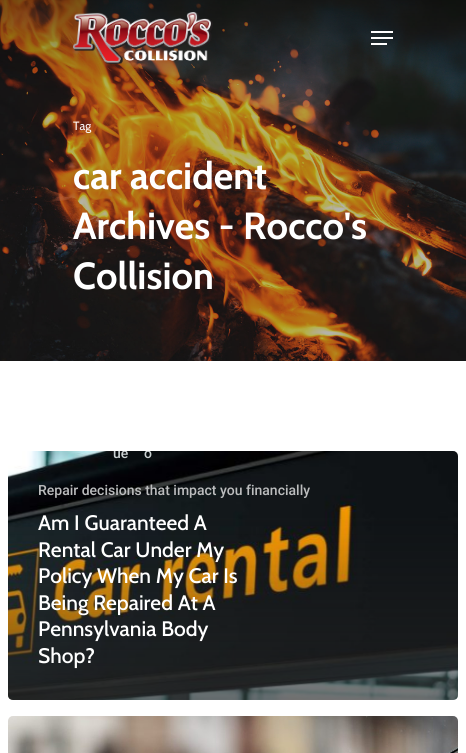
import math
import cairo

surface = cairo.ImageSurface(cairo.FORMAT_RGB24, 466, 753)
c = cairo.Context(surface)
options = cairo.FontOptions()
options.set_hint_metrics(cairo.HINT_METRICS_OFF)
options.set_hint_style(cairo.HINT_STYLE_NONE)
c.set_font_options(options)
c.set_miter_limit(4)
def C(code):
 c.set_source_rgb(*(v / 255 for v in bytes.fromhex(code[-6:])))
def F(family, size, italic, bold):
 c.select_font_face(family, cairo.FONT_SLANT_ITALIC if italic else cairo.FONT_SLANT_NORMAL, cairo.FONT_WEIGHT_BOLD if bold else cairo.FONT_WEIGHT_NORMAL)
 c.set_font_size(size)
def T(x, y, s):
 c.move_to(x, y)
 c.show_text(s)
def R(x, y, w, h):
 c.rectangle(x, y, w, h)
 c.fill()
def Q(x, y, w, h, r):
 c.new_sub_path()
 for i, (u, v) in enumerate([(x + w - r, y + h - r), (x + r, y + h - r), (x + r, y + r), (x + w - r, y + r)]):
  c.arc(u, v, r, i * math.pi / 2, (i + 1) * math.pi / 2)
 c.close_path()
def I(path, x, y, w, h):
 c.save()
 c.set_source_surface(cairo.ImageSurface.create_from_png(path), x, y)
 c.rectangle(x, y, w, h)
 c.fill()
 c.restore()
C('ffffff')
c.paint()
I('2.png',0,0,466,361)
I('1.png',73,12,140,52)
C('ffffff')
R(371,31,22,2)
R(371,43,16,2)
R(371,37,22,2)
F('Cabin',12,0,0)
T(73,130,'Tag')
F('Cabin',37.75,0,1)
T(73,189,'car accident')
T(73,239,'Archives - Rocco\'s')
T(73,289,'Collision')
I('3.png',8,451,450,249)
gradient = cairo.LinearGradient(234,514,234,701)
gradient.add_color_stop_rgba(0,0.137,0.137,0.137,0)
gradient.add_color_stop_rgba(1,0.137,0.137,0.137,.65)
c.set_source(gradient)
c.new_path()
c.move_to(8,514)
c.line_to(458,514)
c.line_to(458,695)
c.curve_to(458,698,456,700,453,700)
c.line_to(13,700)
c.curve_to(10,700,8,698,8,695)
c.close_path()
c.fill()
c.save()
Q(8,451,450,249,5)
c.clip()
F('Roboto Medium',14,0,0)
C('cbd1d2')
T(113,458,'ue')
T(144,458,'o')
c.restore()
F('Roboto Medium',14,0,0)
C('bcbdbe')
T(38,495,'Repair decisions that impact you financially')
F('Cabin Medium',21,0,0)
C('ffffff')
T(38,530,'Am I Guaranteed A')
T(38,557,'Rental Car Under My')
T(38,583,'Policy When My Car Is')
T(38,610,'Being Repaired At A')
T(38,636,'Pennsylvania Body')
T(38,663,'Shop?')
I('4.png',8,716,450,37)
surface.write_to_png('o.png')
